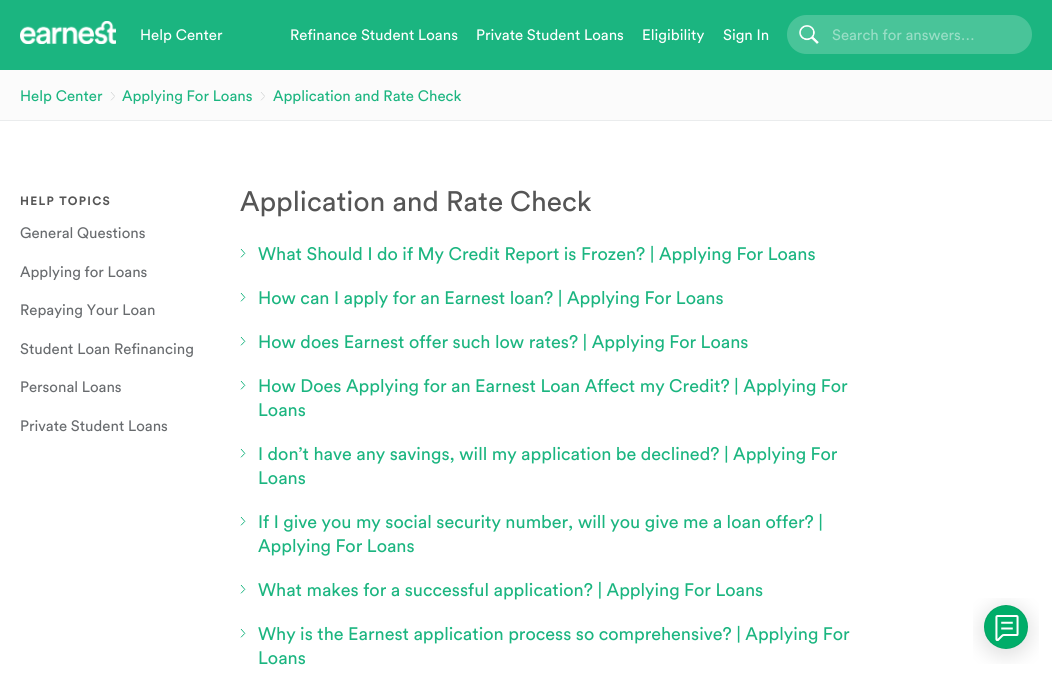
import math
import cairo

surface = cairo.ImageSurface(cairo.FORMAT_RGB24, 1052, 673)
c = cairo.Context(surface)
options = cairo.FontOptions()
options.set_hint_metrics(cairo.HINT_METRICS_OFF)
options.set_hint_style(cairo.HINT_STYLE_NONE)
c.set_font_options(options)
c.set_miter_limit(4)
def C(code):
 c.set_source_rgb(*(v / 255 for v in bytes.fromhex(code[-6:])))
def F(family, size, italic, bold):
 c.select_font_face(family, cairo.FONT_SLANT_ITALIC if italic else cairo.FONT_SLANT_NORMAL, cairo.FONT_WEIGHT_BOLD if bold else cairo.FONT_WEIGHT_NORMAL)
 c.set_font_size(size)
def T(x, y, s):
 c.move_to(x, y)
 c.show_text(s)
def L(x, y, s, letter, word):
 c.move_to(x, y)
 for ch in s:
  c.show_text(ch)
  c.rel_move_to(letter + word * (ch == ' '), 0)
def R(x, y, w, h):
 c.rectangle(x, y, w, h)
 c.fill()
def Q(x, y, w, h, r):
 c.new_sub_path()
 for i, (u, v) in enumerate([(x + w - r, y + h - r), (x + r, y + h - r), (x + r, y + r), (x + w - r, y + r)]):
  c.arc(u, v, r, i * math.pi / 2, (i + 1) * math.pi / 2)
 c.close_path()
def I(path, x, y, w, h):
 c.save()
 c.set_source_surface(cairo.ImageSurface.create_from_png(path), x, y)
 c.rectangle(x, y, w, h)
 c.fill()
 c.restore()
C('ffffff')
c.paint()
C('1bb580')
R(0,0,1052,70)
I('1.png',20,21,96,23)
F('Circular',15,0,0)
C('ffffff')
T(140,40,'Help Center')
T(290,40,'Refinance Student Loans')
T(476,40,'Private Student Loans')
T(642,40,'Eligibility')
T(723,40,'Sign In')
C('49c499')
Q(787,15,245,39,19.5)
c.fill()
I('2.png',799,25,20,19)
C('99dec6')
T(832,40,'Search for answers…')
C('eaeced')
R(0,120,1052,1)
C('fbfbfb')
R(0,70,1052,50)
C('1bb580')
T(20,101,'Help Center')
I('3.png',110,92,5,9)
T(122,101,'Applying For Loans')
I('3.png',260,92,5,9)
T(273,101,'Application and Rate Check')
F('Circular',12,0,1)
C('555555')
L(20,205,'HELP TOPICS',1.25,0)
F('Circular',15,0,0)
C('686b6e')
T(20,238,'General Questions')
T(20,277,'Applying for Loans')
T(20,315,'Repaying Your Loan')
T(20,354,'Student Loan Refinancing')
T(20,392,'Personal Loans')
T(20,431,'Private Student Loans')
F('Circular',28,0,0)
C('555555')
T(240,211,'Application and Rate Check')
I('4.png',240,249,6,9)
F('Circular',18,0,0)
C('1bb580')
T(258,260,'What Should I do if My Credit Report is Frozen? | Applying For Loans')
I('5.png',240,293,6,9)
T(258,304,'How can I apply for an Earnest loan? | Applying For Loans')
I('5.png',240,337,6,9)
T(258,348,'How does Earnest offer such low rates? | Applying For Loans')
I('5.png',240,381,6,9)
T(258,392,'How Does Applying for an Earnest Loan Affect my Credit? | Applying For')
T(258,416,'Loans')
I('5.png',240,449,6,9)
T(258,460,'I don’t have any savings, will my application be declined? | Applying For')
T(258,484,'Loans')
I('5.png',240,517,6,9)
T(258,528,'If I give you my social security number, will you give me a loan offer? |')
T(258,552,'Applying For Loans')
I('5.png',240,585,6,9)
T(258,596,'What makes for a successful application? | Applying For Loans')
I('5.png',240,629,6,9)
T(258,640,'Why is the Earnest application process so comprehensive? | Applying For')
T(258,664,'Loans')
I('6.png',973,598,66,66)
surface.write_to_png('o.png')
